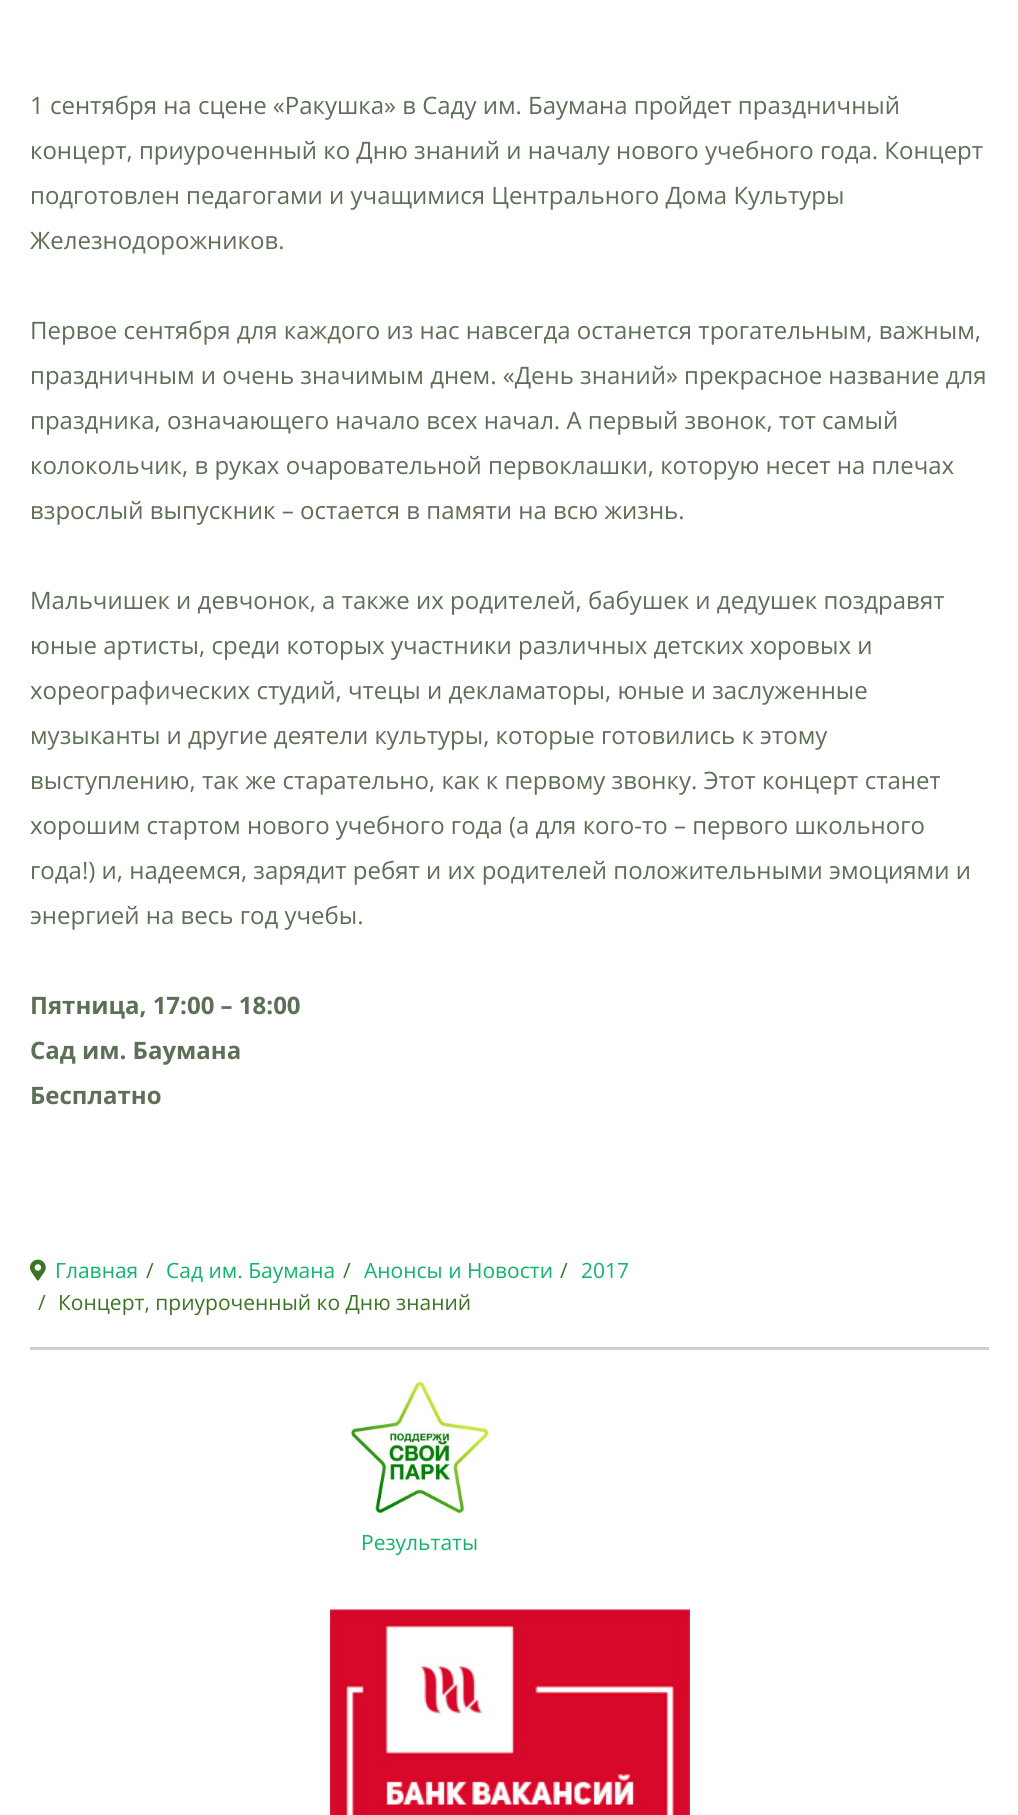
import math
import cairo

surface = cairo.ImageSurface(cairo.FORMAT_RGB24, 1018, 1815)
c = cairo.Context(surface)
options = cairo.FontOptions()
options.set_hint_metrics(cairo.HINT_METRICS_OFF)
options.set_hint_style(cairo.HINT_STYLE_NONE)
c.set_font_options(options)
c.set_miter_limit(4)
def C(code):
 c.set_source_rgb(*(v / 255 for v in bytes.fromhex(code[-6:])))
def F(family, size, italic, bold):
 c.select_font_face(family, cairo.FONT_SLANT_ITALIC if italic else cairo.FONT_SLANT_NORMAL, cairo.FONT_WEIGHT_BOLD if bold else cairo.FONT_WEIGHT_NORMAL)
 c.set_font_size(size)
def T(x, y, s):
 c.move_to(x, y)
 c.show_text(s)
def R(x, y, w, h):
 c.rectangle(x, y, w, h)
 c.fill()
def I(path, x, y, w, h):
 c.save()
 c.set_source_surface(cairo.ImageSurface.create_from_png(path), x, y)
 c.rectangle(x, y, w, h)
 c.fill()
 c.restore()
C('ffffff')
c.paint()
F('Open Sans',24,0,0)
C('5d6f57')
T(30,114,'1 сентября на сцене «Ракушка» в Саду им. Баумана пройдет праздничный')
T(30,159,'концерт, приуроченный ко Дню знаний и началу нового учебного года. Концерт')
T(30,204,'подготовлен педагогами и учащимися Центрального Дома Культуры')
T(30,249,'Железнодорожников.')
T(30,339,'Первое сентября для каждого из нас навсегда останется трогательным, важным,')
T(30,384,'праздничным и очень значимым днем. «День знаний» прекрасное название для')
T(30,429,'праздника, означающего начало всех начал. А первый звонок, тот самый')
T(30,474,'колокольчик, в руках очаровательной первоклашки, которую несет на плечах')
T(30,519,'взрослый выпускник – остается в памяти на всю жизнь.')
T(30,609,'Мальчишек и девчонок, а также их родителей, бабушек и дедушек поздравят')
T(30,654,'юные артисты, среди которых участники различных детских хоровых и')
T(30,699,'хореографических студий, чтецы и декламаторы, юные и заслуженные')
T(30,744,'музыканты и другие деятели культуры, которые готовились к этому')
T(30,789,'выступлению, так же старательно, как к первому звонку. Этот концерт станет')
T(30,834,'хорошим стартом нового учебного года (а для кого-то – первого школьного')
T(30,879,'года!) и, надеемся, зарядит ребят и их родителей положительными эмоциями и')
T(30,924,'энергией на весь год учебы.')
F('Open Sans',24,0,1)
T(30,1014,'Пятница, 17:00 – 18:00')
T(30,1059,'Сад им. Баумана')
T(30,1104,'Бесплатно')
C('cfcfcf')
R(30,1347,959,3)
I('1.png',30,1259,16,22)
F('Open Sans',21,0,0)
C('12b36a')
T(55,1278,'Главная')
C('3c7423')
T(146,1278,'/')
C('12b36a')
T(166,1278,'Сад им. Баумана')
C('3c7423')
T(343,1278,'/')
C('12b36a')
T(364,1278,'Анонсы и Новости')
C('3c7423')
T(560,1278,'/')
C('12b36a')
T(581,1278,'2017')
C('3c7423')
T(38,1310,'/')
T(58,1310,'Концерт, приуроченный ко Дню знаний')
I('2.png',351,1381,138,133)
C('12b36a')
T(361,1550,'Результаты')
I('3.png',330,1609,360,206)
surface.write_to_png('o.png')
